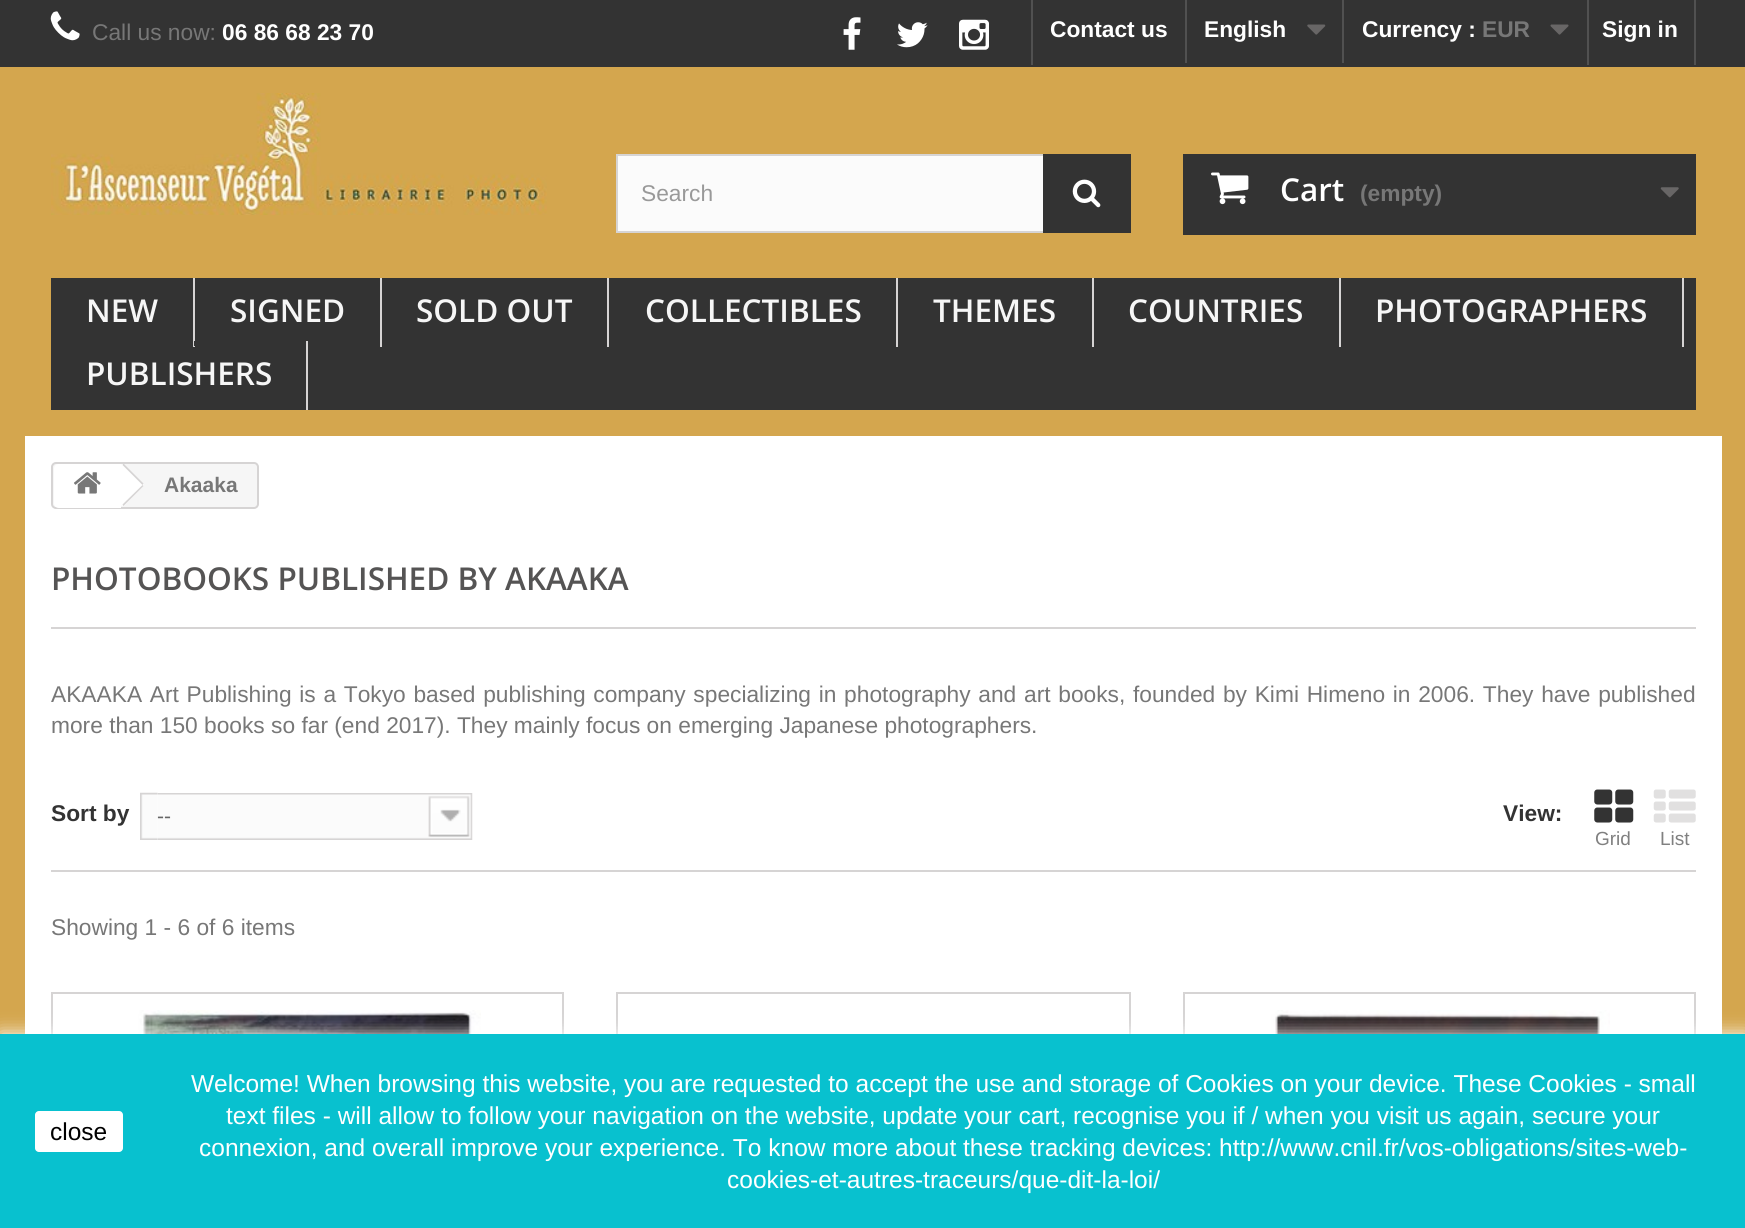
import math
import cairo

surface = cairo.ImageSurface(cairo.FORMAT_RGB24, 1745, 1228)
c = cairo.Context(surface)
options = cairo.FontOptions()
options.set_hint_metrics(cairo.HINT_METRICS_OFF)
options.set_hint_style(cairo.HINT_STYLE_NONE)
c.set_font_options(options)
c.set_miter_limit(4)
def C(code):
 c.set_source_rgb(*(v / 255 for v in bytes.fromhex(code[-6:])))
def F(family, size, italic, bold):
 c.select_font_face(family, cairo.FONT_SLANT_ITALIC if italic else cairo.FONT_SLANT_NORMAL, cairo.FONT_WEIGHT_BOLD if bold else cairo.FONT_WEIGHT_NORMAL)
 c.set_font_size(size)
def T(x, y, s):
 c.move_to(x, y)
 c.show_text(s)
def L(x, y, s, letter, word):
 c.move_to(x, y)
 for ch in s:
  c.show_text(ch)
  c.rel_move_to(letter + word * (ch == ' '), 0)
def R(x, y, w, h):
 c.rectangle(x, y, w, h)
 c.fill()
def Q(x, y, w, h, r):
 c.new_sub_path()
 for i, (u, v) in enumerate([(x + w - r, y + h - r), (x + r, y + h - r), (x + r, y + r), (x + w - r, y + r)]):
  c.arc(u, v, r, i * math.pi / 2, (i + 1) * math.pi / 2)
 c.close_path()
def S(x, y, w, h, r, blur, alpha):
 c.push_group_with_content(cairo.CONTENT_ALPHA)
 c.set_operator(cairo.OPERATOR_SOURCE)
 for i in range(15, -16, -2):
  e = blur * i / 6
  if min(w, h) + 2 * e > 0:
   c.set_source_rgba(0, 0, 0, alpha * math.erfc((i - 1) / 8.5) / 2)
   Q(x - e, y - e, w + 2 * e, h + 2 * e, max(0, min(r + e + blur * .6, min(w, h) / 2 + e)))
   c.fill()
 c.mask(c.pop_group())
def I(path, x, y, w, h):
 c.save()
 c.set_source_surface(cairo.ImageSurface.create_from_png(path), x, y)
 c.rectangle(x, y, w, h)
 c.fill()
 c.restore()
C('d4a64e')
c.paint()
C('333333')
R(0,0,1745,67)
I('1.png',50,11,30,30)
F('Liberation Sans',22.75,0,0)
C('777777')
T(92,40,'Call us now:')
F('Liberation Sans',22.75,0,1)
C('ffffff')
T(222,40,'06 86 68 23 70')
I('2.png',843,17,18,33)
I('3.png',897,22,31,26)
I('4.png',959,19,30,31)
C('515151')
R(1031,0,2,65)
C('ffffff')
T(1050,37,'Contact us')
C('515151')
R(1185,0,2,63)
C('ffffff')
T(1204,37,'English')
I('5.png',1307,24,19,11)
C('515151')
R(1342,0,2,63)
C('ffffff')
T(1362,37,'Currency :')
C('777777')
T(1482,37,'EUR')
I('6.png',1550,24,19,11)
C('515151')
R(1694,0,2,65)
R(1587,0,2,65)
C('ffffff')
T(1602,37,'Sign in')
I('7.png',51,93,496,122)
C('fbfbfb')
R(618,156,425,75)
c.rectangle(617,155,513,77)
C('d6d4d4')
c.stroke()
F('Liberation Sans',22.75,0,0)
C('999999')
T(641,201,'Search')
C('333333')
R(1043,154,88,79)
I('8.png',1072,179,29,29)
R(1183,154,513,81)
I('9.png',1211,172,38,33)
F('Open Sans SemiBold',31.5,0,0)
C('ffffff')
T(1280,201,'Cart')
F('Liberation Sans',22.75,0,1)
C('777777')
T(1360,201,'(empty)')
I('10.png',1660,187,19,11)
C('333333')
R(51,278,1645,132)
C('d6d4d4')
R(193,278,2,69)
F('Open Sans SemiBold',31.5,0,0)
C('f6f6f6')
T(86,322,'NEW')
C('d6d4d4')
R(380,278,2,69)
C('333333')
R(194,341,1,5)
C('f6f6f6')
T(230,322,'SIGNED')
C('d6d4d4')
R(607,278,2,69)
C('f6f6f6')
T(416,322,'SOLD OUT')
C('d6d4d4')
R(896,278,2,69)
C('f6f6f6')
T(645,322,'COLLECTIBLES')
C('d6d4d4')
R(1092,278,2,69)
C('f6f6f6')
T(933,322,'THEMES')
C('d6d4d4')
R(1339,278,2,69)
C('f6f6f6')
T(1128,322,'COUNTRIES')
C('d6d4d4')
R(1682,278,2,69)
C('f6f6f6')
T(1375,322,'PHOTOGRAPHERS')
C('d6d4d4')
R(306,341,2,69)
C('f6f6f6')
T(86,385,'PUBLISHERS')
C('ffffff')
R(25,436,1697,598)
C('f6f6f6')
Q(52,463,206,45,4)
c.fill_preserve()
C('d6d4d4')
c.stroke()
C('ffffff')
c.new_path()
c.move_to(59,464)
c.line_to(121,464)
c.line_to(121,508)
c.line_to(59,508)
c.curve_to(56,508,54,506,54,503)
c.line_to(54,469)
c.curve_to(54,466,56,464,59,464)
c.close_path()
c.fill()
I('11.png',74,472,27,22)
c.new_path()
c.move_to(125,465)
c.line_to(142,482)
c.curve_to(144,484,144,486,142,487)
c.line_to(125,505)
c.curve_to(124,506,121,506,120,505)
c.line_to(103,487)
c.curve_to(101,486,101,484,103,482)
c.line_to(120,465)
c.curve_to(121,464,124,464,125,465)
c.close_path()
c.fill()
C('d6d4d4')
c.new_path()
c.move_to(123.5,463.5)
c.line_to(143.5,483.5)
c.line_to(142.5,485)
c.line_to(122.5,465)
c.close_path()
c.move_to(142.5,485)
c.line_to(143.5,486)
c.line_to(123.5,506)
c.line_to(122.5,504.5)
c.close_path()
c.fill()
F('Liberation Sans',21,0,1)
C('777777')
T(164,492,'Akaaka')
F('Open Sans SemiBold',31.5,0,0)
C('555454')
T(51,590,'PHOTOBOOKS PUBLISHED BY AKAAKA')
C('d6d4d4')
R(51,627,1645,2)
F('Liberation Sans',22.75,0,0)
C('777777')
L(51,702,'AKAAKA Art Publishing is a Tokyo based publishing company specializing in photography and art books, founded by Kimi Himeno in 2006. They have published',0,1.4)
T(51,733,'more than 150 books so far (end 2017). They mainly focus on emerging Japanese photographers.')
C('d6d4d4')
R(51,870,1645,2)
F('Liberation Sans',22.75,0,1)
C('333333')
T(51,821,'Sort by')
I('12.png',140,792,18,48)
I('13.png',157,793,316,47)
F('Liberation Sans',21,0,0)
C('666666')
T(157,823,'--')
F('Liberation Sans',22.75,0,1)
C('333333')
T(1503,821,'View:')
I('14.png',1594,789,40,34)
F('Liberation Sans',19,0,0)
C('808080')
T(1595,845,'Grid')
I('15.png',1653,789,43,34)
T(1660,845,'List')
F('Liberation Sans',22.75,0,0)
C('777777')
T(51,935,'Showing 1 - 6 of 6 items')
c.rectangle(52,993,511,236)
C('d6d4d4')
c.stroke()
I('16.png',138,1010,343,24)
c.rectangle(617,993,513,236)
c.stroke()
c.rectangle(1184,993,511,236)
c.stroke()
I('17.png',1271,1010,339,24)
C('ffffff')
S(0,1034,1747,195,0,9,1)
C('08c1cf')
R(0,1034,1745,194)
C('ffffff')
Q(35,1111,88,41,4)
c.fill()
F('Liberation Sans',24.5,0,0)
C('000000')
T(50,1140,'close')
C('ffffff')
T(191,1092,'Welcome! When browsing this website, you are requested to accept the use and storage of Cookies on your device. These Cookies - small')
T(226,1124,'text files - will allow to follow your navigation on the website, update your cart, recognise you if / when you visit us again, secure your')
T(199,1156,'connexion, and overall improve your experience. To know more about these tracking devices: http://www.cnil.fr/vos-obligations/sites-web-')
T(727,1188,'cookies-et-autres-traceurs/que-dit-la-loi/')
surface.write_to_png('o.png')
